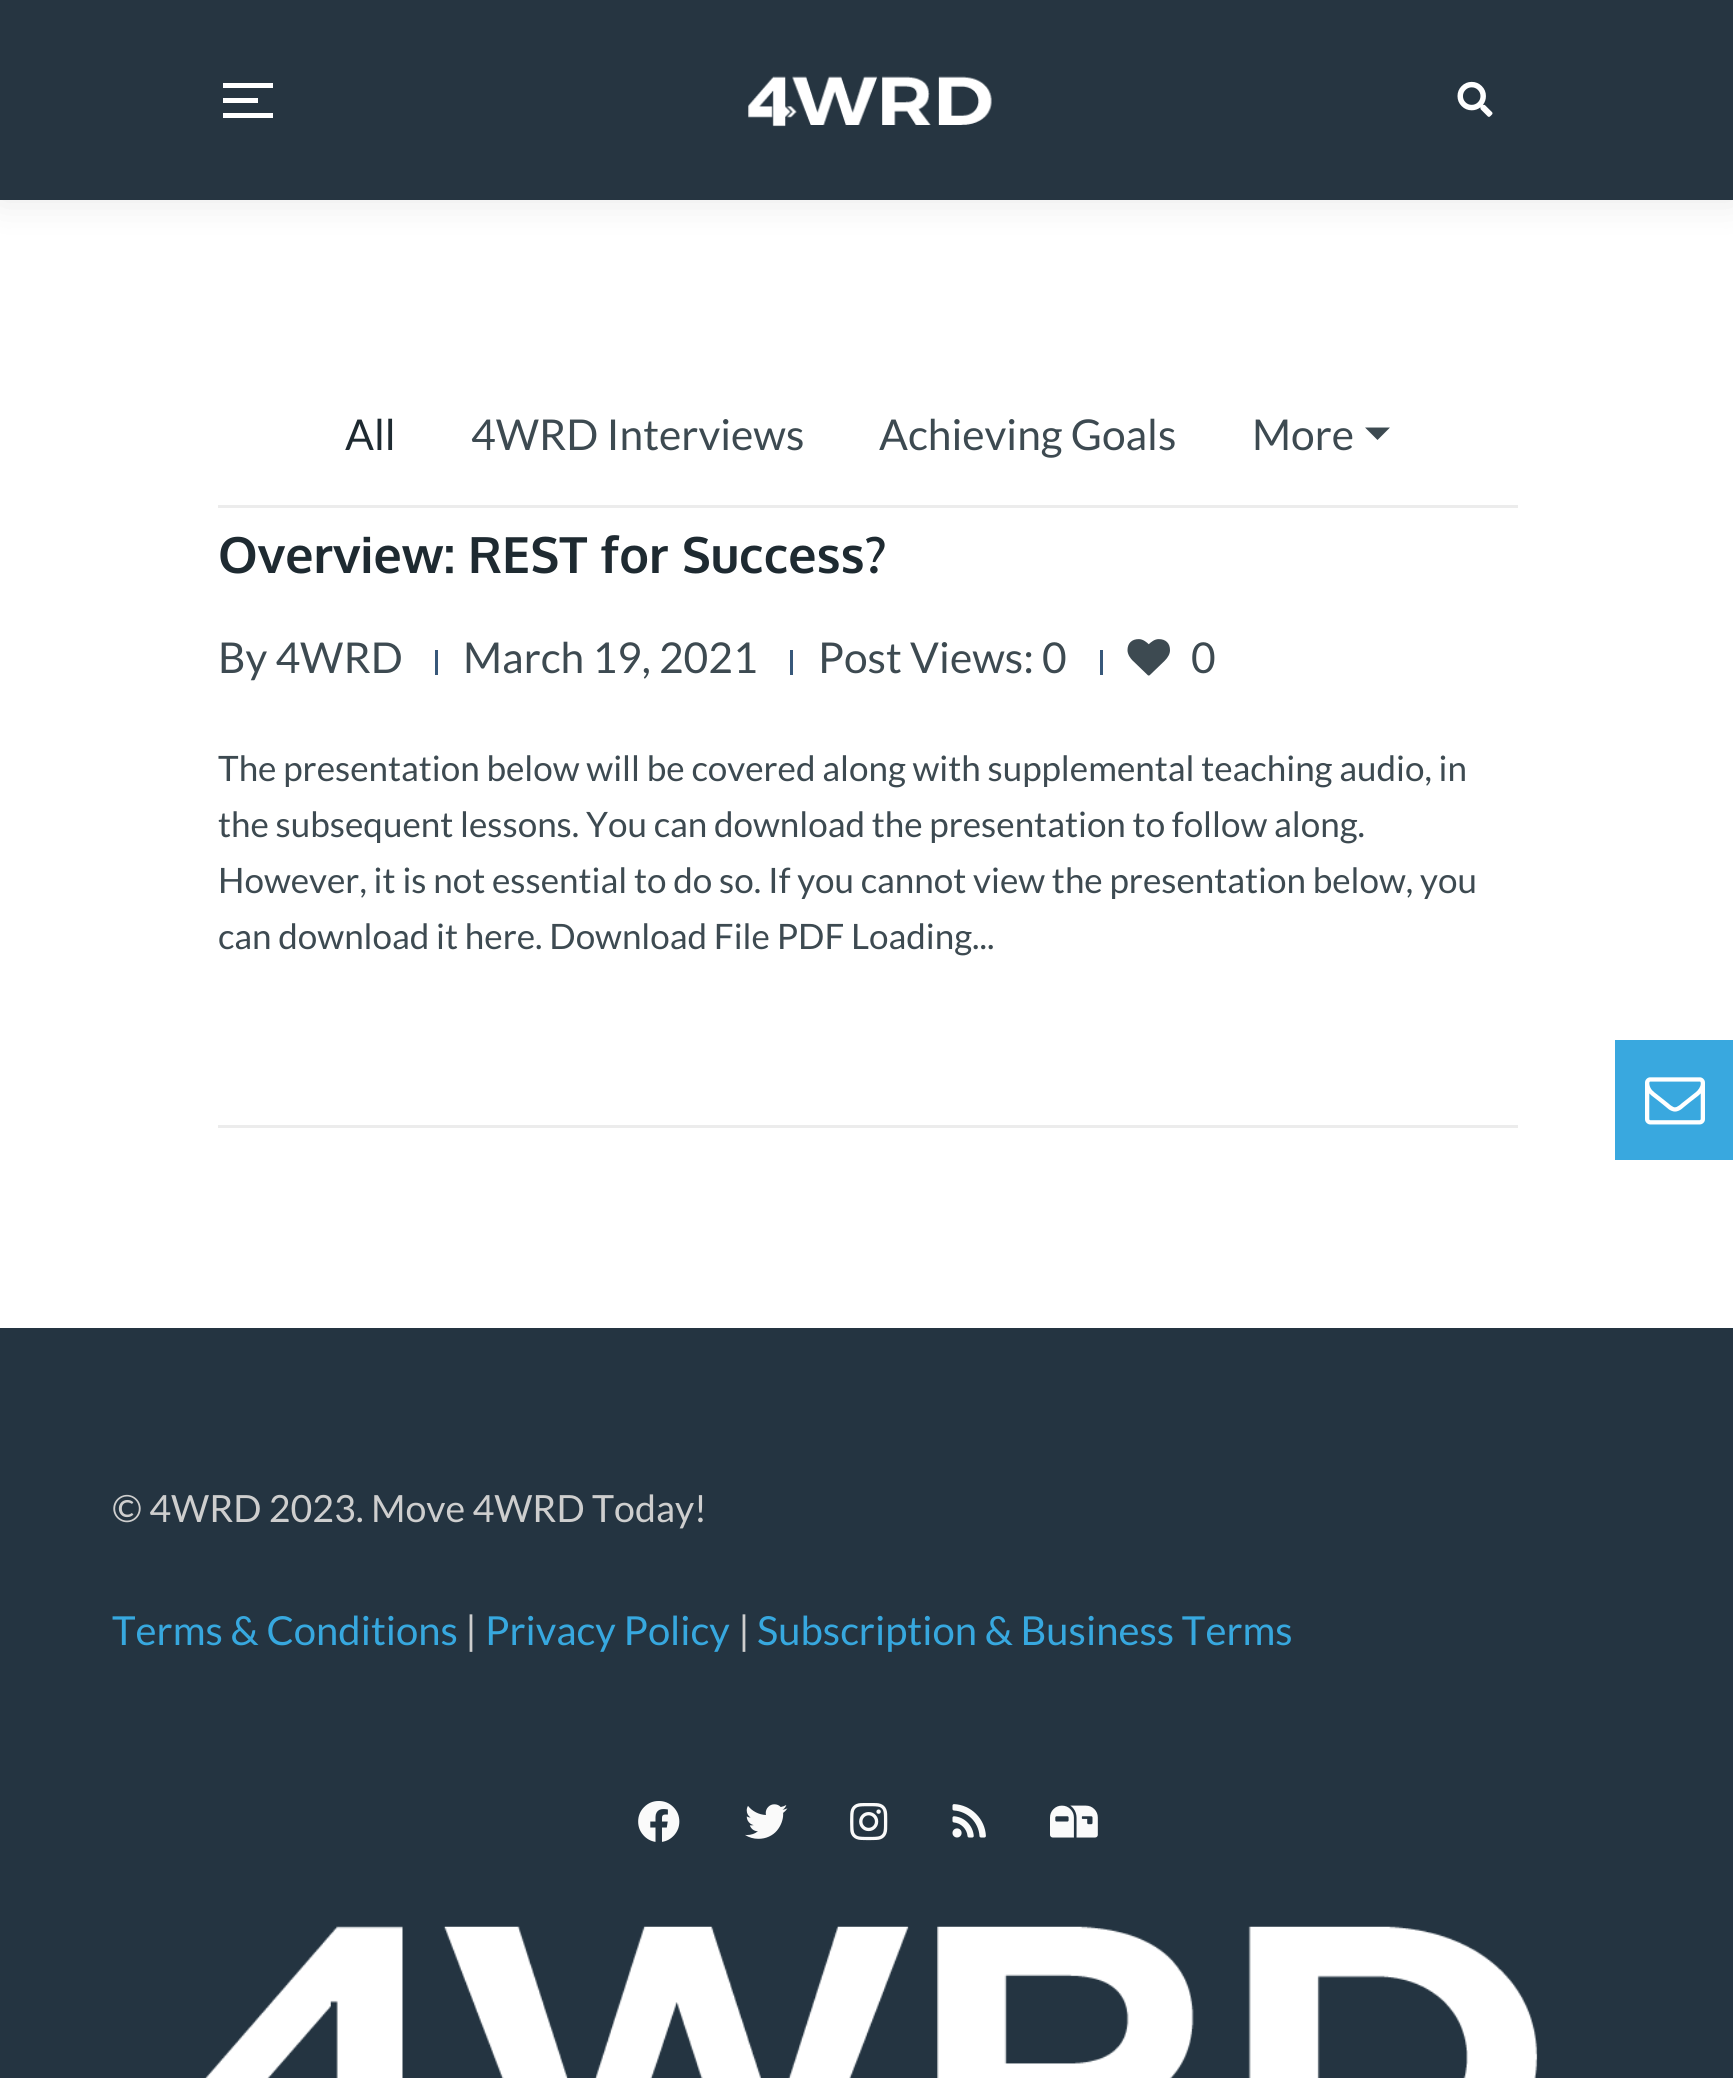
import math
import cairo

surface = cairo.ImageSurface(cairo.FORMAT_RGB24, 1733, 2078)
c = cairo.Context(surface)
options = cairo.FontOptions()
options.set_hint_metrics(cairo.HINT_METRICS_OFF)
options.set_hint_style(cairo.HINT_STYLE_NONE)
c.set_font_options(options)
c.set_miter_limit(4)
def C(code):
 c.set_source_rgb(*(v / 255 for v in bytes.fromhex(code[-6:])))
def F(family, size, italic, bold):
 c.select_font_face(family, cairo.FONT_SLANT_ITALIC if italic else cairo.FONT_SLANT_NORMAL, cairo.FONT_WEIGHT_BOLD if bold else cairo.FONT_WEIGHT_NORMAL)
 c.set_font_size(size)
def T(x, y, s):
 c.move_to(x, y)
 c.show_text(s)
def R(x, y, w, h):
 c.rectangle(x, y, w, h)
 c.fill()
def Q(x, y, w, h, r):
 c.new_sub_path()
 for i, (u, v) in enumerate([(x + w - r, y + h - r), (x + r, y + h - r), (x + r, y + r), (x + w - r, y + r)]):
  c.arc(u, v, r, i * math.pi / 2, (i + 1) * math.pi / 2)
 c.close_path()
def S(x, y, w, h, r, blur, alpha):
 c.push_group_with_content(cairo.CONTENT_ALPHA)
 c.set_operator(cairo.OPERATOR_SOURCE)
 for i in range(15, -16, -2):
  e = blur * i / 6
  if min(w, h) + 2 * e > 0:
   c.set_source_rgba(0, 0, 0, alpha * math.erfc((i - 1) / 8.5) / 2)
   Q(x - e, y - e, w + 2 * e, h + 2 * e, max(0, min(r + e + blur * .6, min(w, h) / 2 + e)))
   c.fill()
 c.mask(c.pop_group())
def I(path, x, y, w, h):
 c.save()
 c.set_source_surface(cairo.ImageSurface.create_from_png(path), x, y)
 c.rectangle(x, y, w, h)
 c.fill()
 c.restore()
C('ffffff')
c.paint()
C('000000')
S(0,0,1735,200,0,19,.1)
C('263541')
R(0,0,1733,200)
C('ffffff')
R(223,98,35,5)
R(223,83,50,5)
R(223,113,50,5)
I('1.png',748,76,244,51)
I('2.png',1457,81,36,36)
C('ececec')
R(218,505,1300,3)
F('Lato',42.5,0,0)
C('1e2a31')
T(345,450,'All')
C('3d4a51')
T(471,450,'4WRD Interviews')
T(879,450,'Achieving Goals')
T(1252,450,'More')
c.new_path()
c.move_to(1365,427.5)
c.line_to(1390,427.5)
c.line_to(1377.5,440)
c.close_path()
c.fill()
C('ececec')
R(218,1125,1300,3)
F('Oxygen',50,0,1)
C('1e2a31')
T(218,573,'Overview: REST for Success?')
F('Lato',42.5,0,0)
C('3d4a51')
T(218,673,'By 4WRD')
C('38587a')
R(435,650,3,25)
C('3d4a51')
T(463,673,'March 19, 2021')
C('38587a')
R(790,650,3,25)
C('3d4a51')
T(818,673,'Post Views: 0')
C('38587a')
R(1100,650,3,25)
I('3.png',1127,639,43,37)
C('3d4a51')
T(1191,673,'0')
F('Lato',35,0,0)
T(218,781,'The presentation below will be covered along with supplemental teaching audio, in')
T(218,837,'the subsequent lessons. You can download the presentation to follow along.')
T(218,893,'However, it is not essential to do so. If you cannot view the presentation below, you')
T(218,949,'can download it here. Download File PDF Loading...')
C('243441')
R(0,1328,1733,750)
F('Lato',37.5,0,0)
C('cecece')
T(112,1522,'© 4WRD 2023. Move 4WRD Today!')
F('Lato',40,0,0)
C('37a8df')
T(112,1645,'Terms & Conditions')
C('cecece')
T(465,1645,'|')
C('37a8df')
T(485,1645,'Privacy Policy')
C('cecece')
T(738,1645,'|')
C('37a8df')
T(757,1645,'Subscription & Business Terms')
I('4.png',638,1801,42,41)
I('5.png',745,1804,43,35)
I('6.png',850,1803,38,38)
I('7.png',952,1804,34,34)
I('8.png',1050,1805,48,33)
I('9.png',204,1926,1334,152)
C('39a8df')
R(1615,1040,118,120)
I('10.png',1645,1077,60,48)
surface.write_to_png('o.png')
